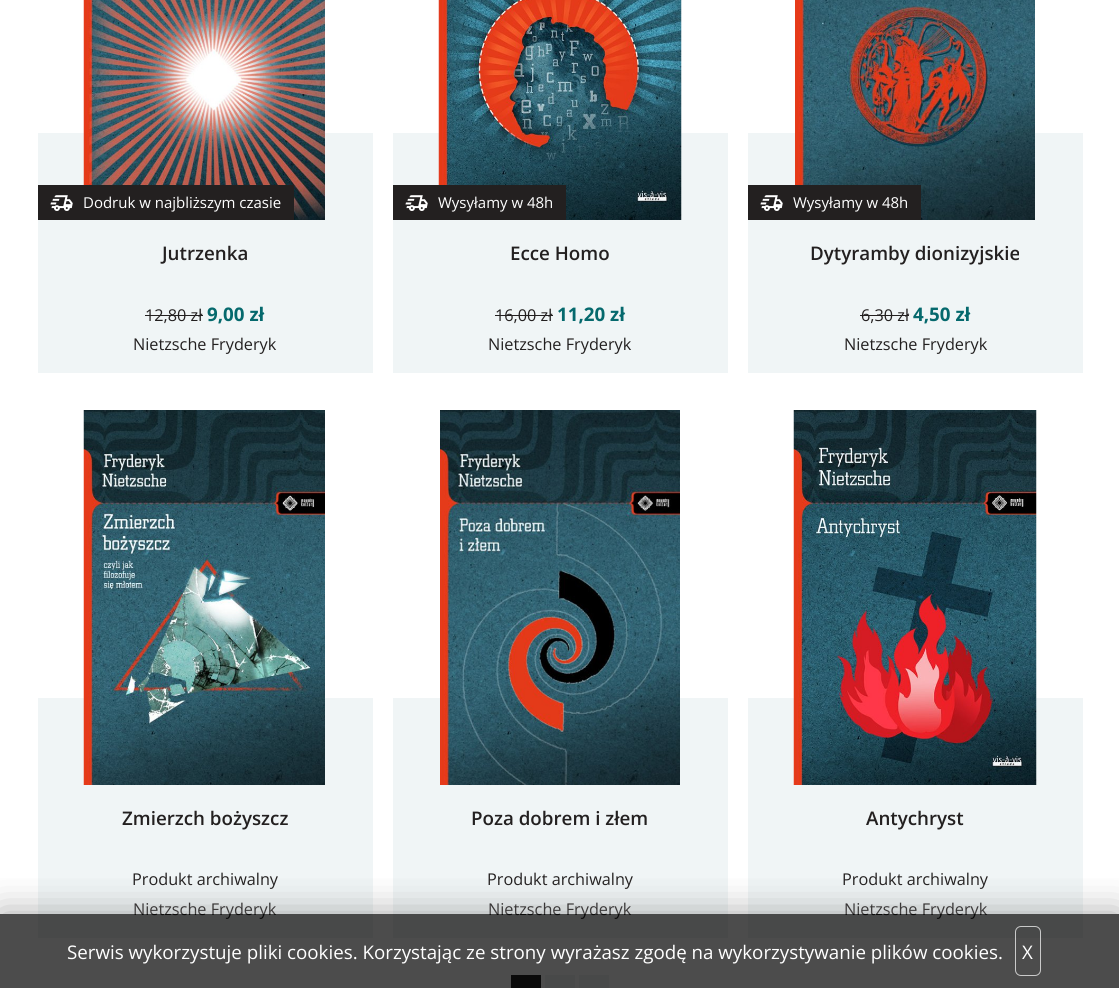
import math
import cairo

surface = cairo.ImageSurface(cairo.FORMAT_RGB24, 1119, 988)
c = cairo.Context(surface)
options = cairo.FontOptions()
options.set_hint_metrics(cairo.HINT_METRICS_OFF)
options.set_hint_style(cairo.HINT_STYLE_NONE)
c.set_font_options(options)
c.set_miter_limit(4)
def C(code):
 c.set_source_rgb(*(v / 255 for v in bytes.fromhex(code[-6:])))
def F(family, size, italic, bold):
 c.select_font_face(family, cairo.FONT_SLANT_ITALIC if italic else cairo.FONT_SLANT_NORMAL, cairo.FONT_WEIGHT_BOLD if bold else cairo.FONT_WEIGHT_NORMAL)
 c.set_font_size(size)
def T(x, y, s):
 c.move_to(x, y)
 c.show_text(s)
def R(x, y, w, h):
 c.rectangle(x, y, w, h)
 c.fill()
def Q(x, y, w, h, r):
 c.new_sub_path()
 for i, (u, v) in enumerate([(x + w - r, y + h - r), (x + r, y + h - r), (x + r, y + r), (x + w - r, y + r)]):
  c.arc(u, v, r, i * math.pi / 2, (i + 1) * math.pi / 2)
 c.close_path()
def S(x, y, w, h, r, blur, alpha):
 c.push_group_with_content(cairo.CONTENT_ALPHA)
 c.set_operator(cairo.OPERATOR_SOURCE)
 for i in range(15, -16, -2):
  e = blur * i / 6
  if min(w, h) + 2 * e > 0:
   c.set_source_rgba(0, 0, 0, alpha * math.erfc((i - 1) / 8.5) / 2)
   Q(x - e, y - e, w + 2 * e, h + 2 * e, max(0, min(r + e + blur * .6, min(w, h) / 2 + e)))
   c.fill()
 c.mask(c.pop_group())
def I(path, x, y, w, h):
 c.save()
 c.set_source_surface(cairo.ImageSurface.create_from_png(path), x, y)
 c.rectangle(x, y, w, h)
 c.fill()
 c.restore()
C('ffffff')
c.paint()
C('f0f5f6')
R(38,133,335,240)
I('1.png',83,0,242,220)
C('232020')
R(38,185,256,35)
I('2.png',50,195,23,16)
F('Open Sans',15,0,0)
C('ffffff')
T(83,208,'Dodruk w najbliższym czasie')
F('Open Sans SemiBold',18.75,0,0)
C('232020')
T(162,260,'Jutrzenka')
F('Open Sans',16.25,0,0)
T(145,321,'12,80 zł')
R(145,315,58,1)
F('Open Sans',18.75,0,1)
C('05696d')
T(207,321,'9,00 zł')
F('Open Sans',16.25,0,0)
C('232020')
T(133,350,'Nietzsche Fryderyk')
C('f0f5f6')
R(393,133,335,240)
I('3.png',438,0,244,220)
C('232020')
R(393,185,173,35)
I('2.png',405,195,23,16)
F('Open Sans',15,0,0)
C('ffffff')
T(438,208,'Wysyłamy w 48h')
F('Open Sans SemiBold',18.75,0,0)
C('232020')
T(510,260,'Ecce Homo')
F('Open Sans',16.25,0,0)
T(495,321,'16,00 zł')
R(495,315,58,1)
F('Open Sans',18.75,0,1)
C('05696d')
T(557,321,'11,20 zł')
F('Open Sans',16.25,0,0)
C('232020')
T(488,350,'Nietzsche Fryderyk')
C('f0f5f6')
R(748,133,335,240)
I('4.png',795,0,240,220)
C('232020')
R(748,185,173,35)
I('2.png',760,195,23,16)
F('Open Sans',15,0,0)
C('ffffff')
T(793,208,'Wysyłamy w 48h')
F('Open Sans SemiBold',18.75,0,0)
C('232020')
T(810,260,'Dytyramby dionizyjskie')
F('Open Sans',16.25,0,0)
T(861,321,'6,30 zł')
R(860,315,49,1)
F('Open Sans',18.75,0,1)
C('05696d')
T(913,321,'4,50 zł')
F('Open Sans',16.25,0,0)
C('232020')
T(844,350,'Nietzsche Fryderyk')
C('f0f5f6')
R(38,698,335,240)
I('5.png',83,410,242,375)
F('Open Sans SemiBold',18.75,0,0)
C('232020')
T(122,825,'Zmierzch bożyszcz')
F('Open Sans',16.25,0,0)
T(132,885,'Produkt archiwalny')
T(133,915,'Nietzsche Fryderyk')
C('f0f5f6')
R(393,698,335,240)
I('6.png',440,410,240,375)
F('Open Sans SemiBold',18.75,0,0)
C('232020')
T(471,825,'Poza dobrem i złem')
F('Open Sans',16.25,0,0)
T(487,885,'Produkt archiwalny')
T(488,915,'Nietzsche Fryderyk')
C('f0f5f6')
R(748,698,335,240)
I('7.png',793,410,244,375)
F('Open Sans SemiBold',18.75,0,0)
C('232020')
T(866,825,'Antychryst')
F('Open Sans',16.25,0,0)
T(842,885,'Produkt archiwalny')
T(844,915,'Nietzsche Fryderyk')
R(511,975,30,13)
C('f0f5f6')
R(545,975,30,13)
R(579,975,30,13)
c.save()
c.rectangle(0,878,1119,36)
c.clip()
C('808080')
S(0,914,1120,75,0,19,.7)
c.restore()
c.set_source_rgba(0,0,0,0.7)
R(0,914,1119,74)
F('Open Sans',18.75,0,0)
C('ffffff')
T(67,959,'Serwis wykorzystuje pliki cookies. Korzystając ze strony wyrażasz zgodę na wykorzystywanie plików cookies.')
Q(1015.5,926.5,25,49,5.5)
c.set_source_rgba(1,1,1,0.7)
c.set_line_width(1)
c.stroke()
C('ffffff')
T(1022,959,'X')
surface.write_to_png('o.png')
